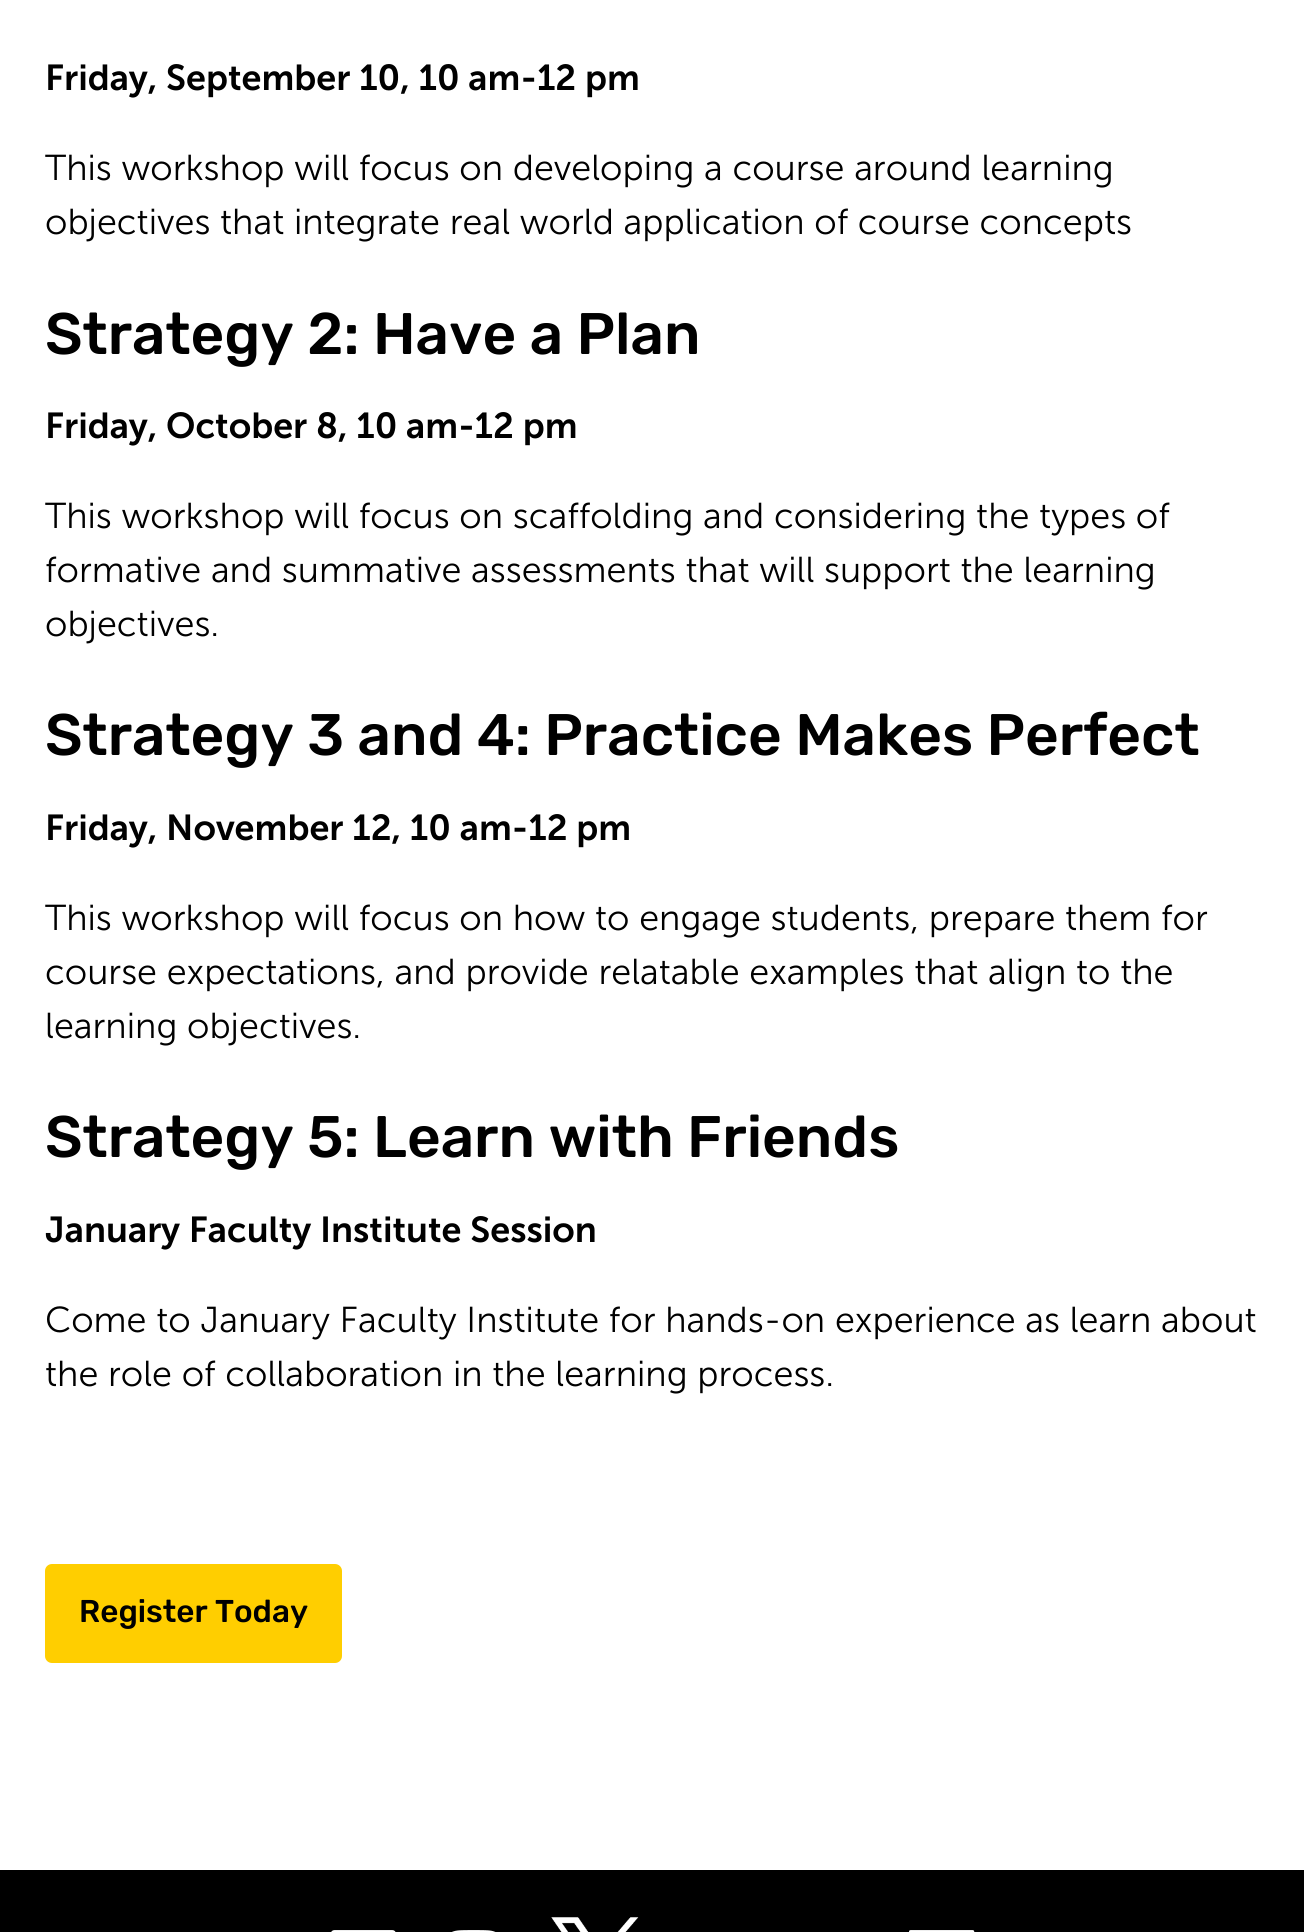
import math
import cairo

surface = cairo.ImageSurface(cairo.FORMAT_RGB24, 1304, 1932)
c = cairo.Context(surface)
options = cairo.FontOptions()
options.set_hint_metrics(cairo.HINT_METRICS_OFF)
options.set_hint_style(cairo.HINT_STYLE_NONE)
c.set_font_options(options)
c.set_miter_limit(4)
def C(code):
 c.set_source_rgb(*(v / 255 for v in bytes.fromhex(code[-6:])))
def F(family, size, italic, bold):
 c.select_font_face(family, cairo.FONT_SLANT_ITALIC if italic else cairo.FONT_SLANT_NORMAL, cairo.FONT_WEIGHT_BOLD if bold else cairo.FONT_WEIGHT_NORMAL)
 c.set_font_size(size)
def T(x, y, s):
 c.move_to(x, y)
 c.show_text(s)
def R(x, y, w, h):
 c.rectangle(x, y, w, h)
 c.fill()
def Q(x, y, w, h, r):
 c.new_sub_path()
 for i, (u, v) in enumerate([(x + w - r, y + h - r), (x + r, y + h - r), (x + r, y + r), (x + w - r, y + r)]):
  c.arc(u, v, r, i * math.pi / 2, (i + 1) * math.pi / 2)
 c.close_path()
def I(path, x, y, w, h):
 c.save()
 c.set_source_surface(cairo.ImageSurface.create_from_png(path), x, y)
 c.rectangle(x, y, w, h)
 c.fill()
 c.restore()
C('ffffff')
c.paint()
F('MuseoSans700',36,0,0)
C('000000')
T(45,90,'Friday, September 10, 10 am-12 pm')
F('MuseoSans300',36,0,0)
T(45,180,'This workshop will focus on developing a course around learning')
T(45,234,'objectives that integrate real world application of course concepts')
F('Rubik Medium',58.5,0,0)
T(45,354,'Strategy 2: Have a Plan')
F('MuseoSans700',36,0,0)
T(45,438,'Friday, October 8, 10 am-12 pm')
F('MuseoSans300',36,0,0)
T(45,528,'This workshop will focus on scaffolding and considering the types of')
T(45,582,'formative and summative assessments that will support the learning')
T(45,636,'objectives.')
F('Rubik Medium',58.5,0,0)
T(45,755,'Strategy 3 and 4: Practice Makes Perfect')
F('MuseoSans700',36,0,0)
T(45,840,'Friday, November 12, 10 am-12 pm')
F('MuseoSans300',36,0,0)
T(45,930,'This workshop will focus on how to engage students, prepare them for')
T(45,984,'course expectations, and provide relatable examples that align to the')
T(45,1038,'learning objectives.')
F('Rubik Medium',58.5,0,0)
T(45,1157,'Strategy 5: Learn with Friends')
F('MuseoSans700',36,0,0)
T(45,1242,'January Faculty Institute Session')
F('MuseoSans300',36,0,0)
T(45,1332,'Come to January Faculty Institute for hands-on experience as learn about')
T(45,1386,'the role of collaboration in the learning process.')
C('ffce00')
Q(45,1564,297,99,7)
c.fill()
F('Rubik Medium',31.5,0,0)
C('000000')
T(79,1622,'Register Today')
R(0,1870,1304,62)
I('1.png',331,1930,65,2)
I('2.png',452,1930,44,2)
I('3.png',551,1917,88,15)
I('4.png',909,1930,66,2)
surface.write_to_png('o.png')
